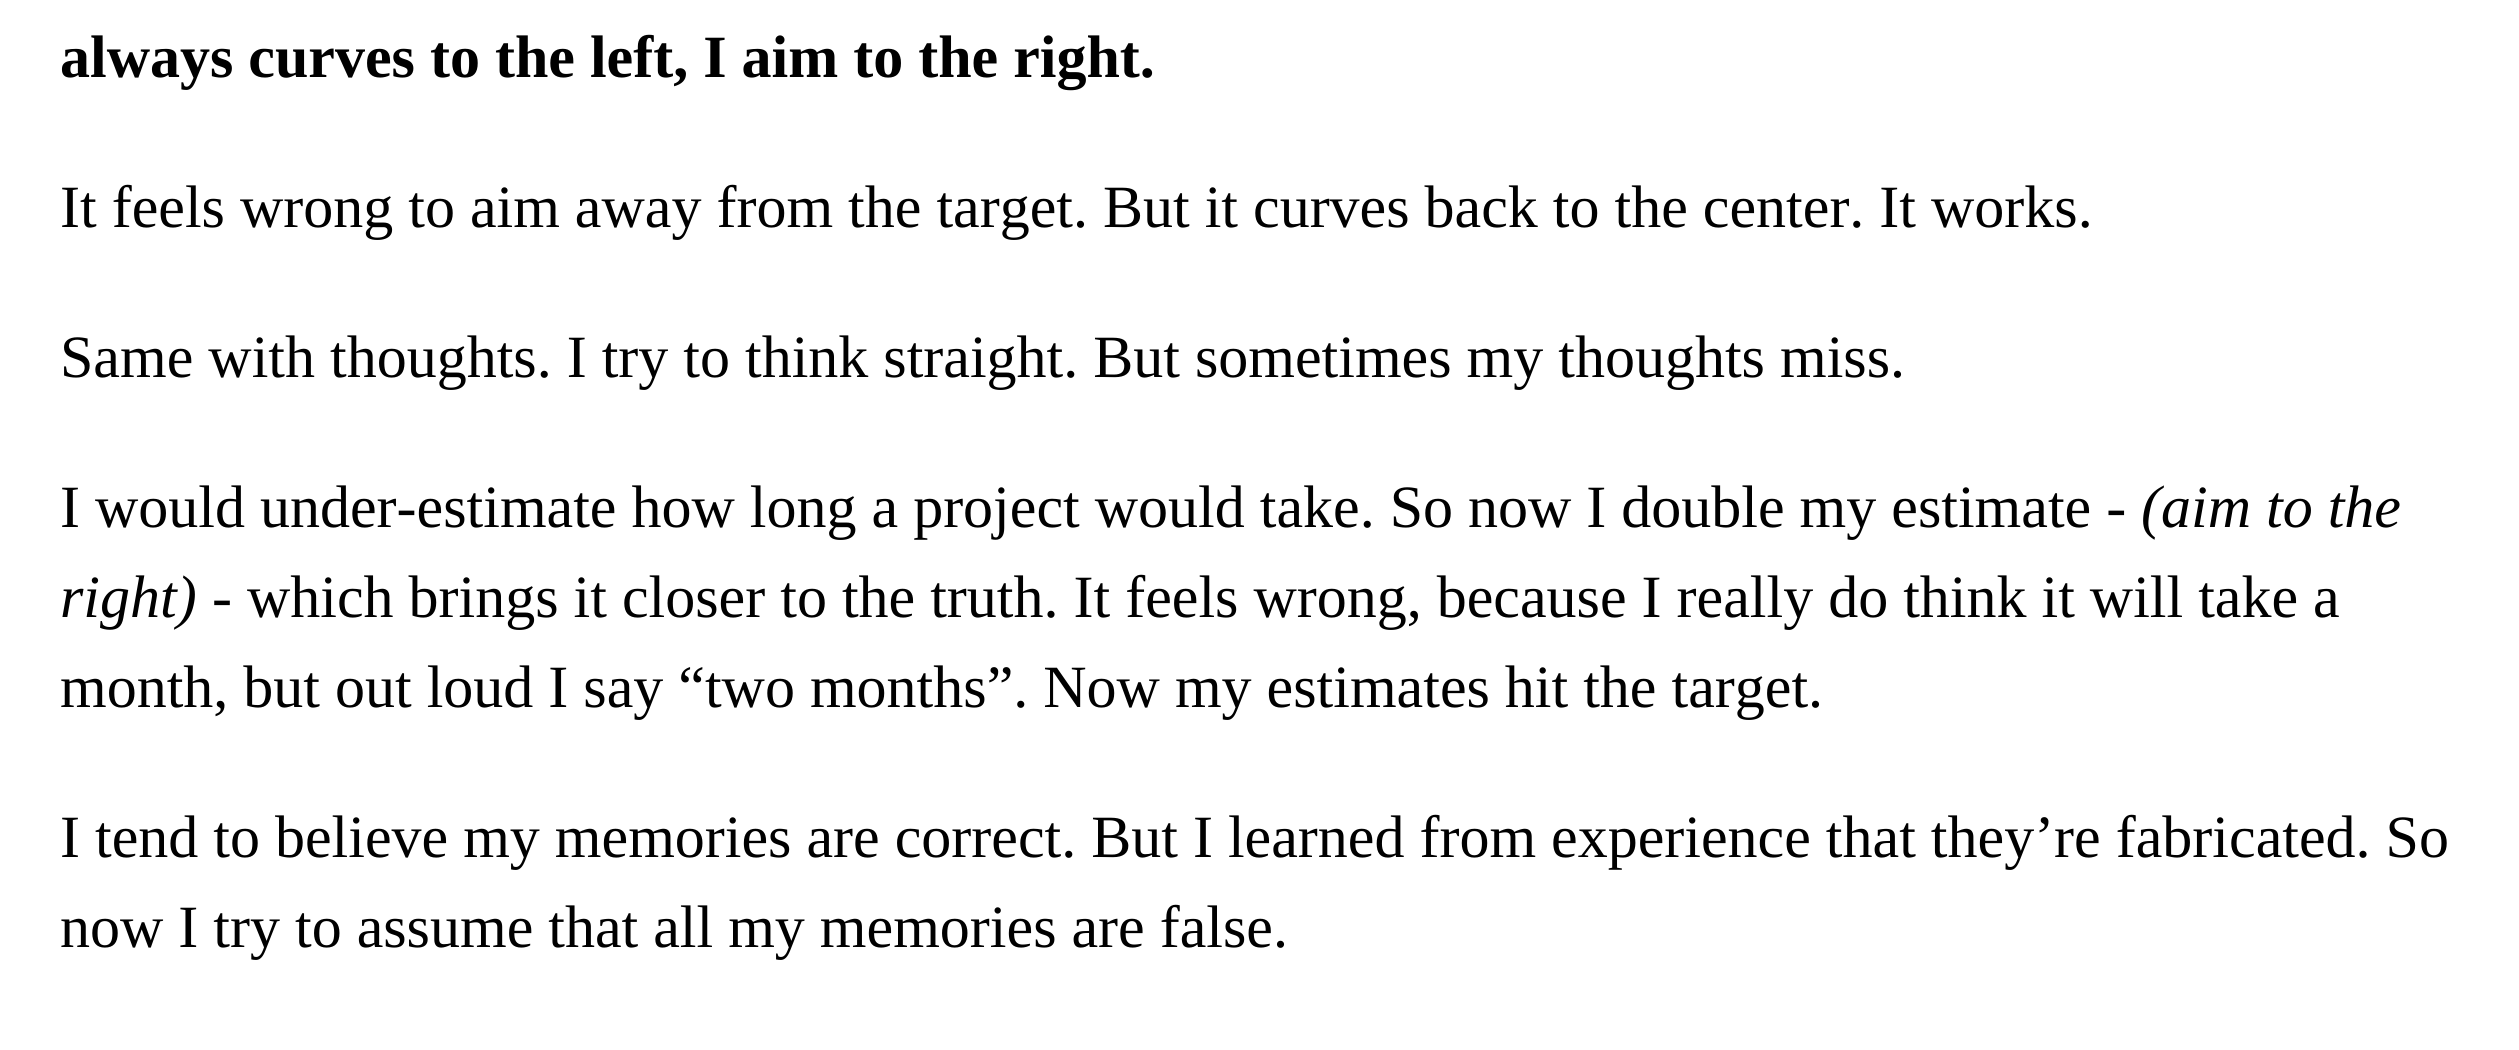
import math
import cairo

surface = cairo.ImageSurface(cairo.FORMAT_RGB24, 2519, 1050)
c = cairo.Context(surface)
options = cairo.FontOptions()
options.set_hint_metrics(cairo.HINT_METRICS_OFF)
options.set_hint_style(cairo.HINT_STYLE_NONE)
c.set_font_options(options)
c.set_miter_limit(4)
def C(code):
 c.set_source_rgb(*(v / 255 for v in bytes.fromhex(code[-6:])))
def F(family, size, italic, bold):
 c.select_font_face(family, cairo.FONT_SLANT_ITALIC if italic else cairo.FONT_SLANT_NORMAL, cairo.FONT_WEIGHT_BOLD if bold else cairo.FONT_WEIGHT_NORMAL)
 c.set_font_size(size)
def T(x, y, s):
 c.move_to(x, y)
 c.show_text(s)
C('ffffff')
c.paint()
F('Liberation Serif',60,0,1)
C('000000')
T(60,77,'always curves to the left, I aim to the right.')
F('Liberation Serif',60,0,0)
T(60,227,'It feels wrong to aim away from the target. But it curves back to the center. It works.')
T(60,377,'Same with thoughts. I try to think straight. But sometimes my thoughts miss.')
T(60,527,'I would under-estimate how long a project would take. So now I double my estimate -')
F('Liberation Serif',60,1,0)
T(2141,527,'(aim to the')
T(60,617,'right)')
F('Liberation Serif',60,0,0)
T(212,617,'- which brings it closer to the truth. It feels wrong, because I really do think it will take a')
T(60,707,'month, but out loud I say “two months”. Now my estimates hit the target.')
T(60,857,'I tend to believe my memories are correct. But I learned from experience that they’re fabricated. So')
T(60,947,'now I try to assume that all my memories are false.')
surface.write_to_png('o.png')
